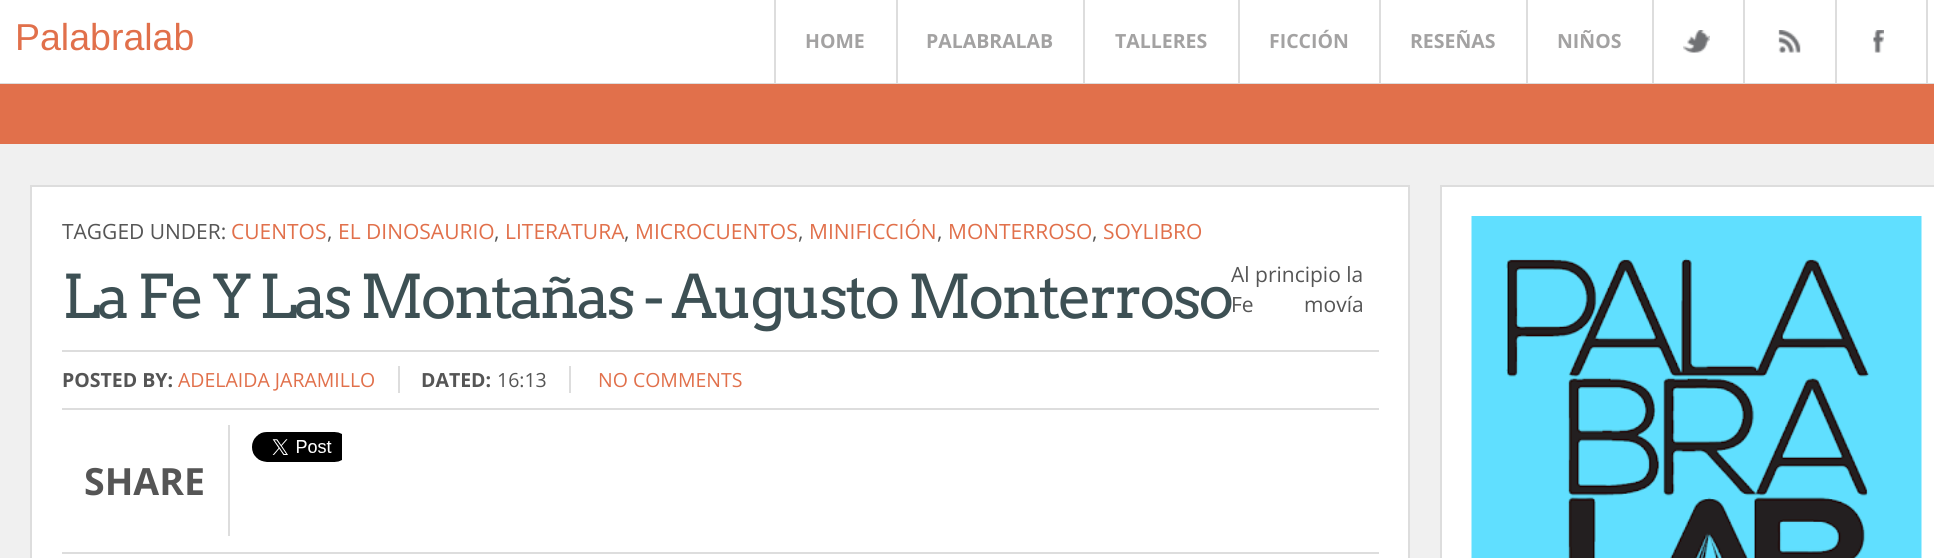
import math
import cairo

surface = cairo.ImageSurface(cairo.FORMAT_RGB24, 1934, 558)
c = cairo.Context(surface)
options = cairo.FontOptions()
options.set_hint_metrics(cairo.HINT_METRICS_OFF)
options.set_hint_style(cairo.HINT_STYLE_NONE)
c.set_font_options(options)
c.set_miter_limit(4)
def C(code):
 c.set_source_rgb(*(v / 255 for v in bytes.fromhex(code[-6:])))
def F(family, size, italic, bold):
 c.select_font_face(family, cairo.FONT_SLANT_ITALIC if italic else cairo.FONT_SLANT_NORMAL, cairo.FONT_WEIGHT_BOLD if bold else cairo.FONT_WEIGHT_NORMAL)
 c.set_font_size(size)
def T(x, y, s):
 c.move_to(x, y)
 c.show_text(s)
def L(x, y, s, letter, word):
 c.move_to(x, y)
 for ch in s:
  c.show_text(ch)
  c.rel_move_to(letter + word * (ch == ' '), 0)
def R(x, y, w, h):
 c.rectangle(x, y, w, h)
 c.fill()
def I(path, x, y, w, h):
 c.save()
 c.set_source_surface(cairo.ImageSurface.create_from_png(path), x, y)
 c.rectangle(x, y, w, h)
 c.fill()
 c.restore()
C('ffffff')
c.paint()
C('dddddd')
R(0,83,1934,1)
F('Liberation Sans',37.5,0,0)
C('e1704b')
T(15,50,'Palabralab')
C('dddddd')
R(774,0,2,83)
F('Open Sans',19.5,0,1)
C('a3a2a2')
T(805,48,'HOME')
C('dddddd')
R(896,0,2,83)
C('a3a2a2')
T(926,48,'PALABRALAB')
C('dddddd')
R(1083,0,2,83)
C('a3a2a2')
T(1115,48,'TALLERES')
C('dddddd')
R(1238,0,2,83)
C('a3a2a2')
T(1269,48,'FICCIÓN')
C('dddddd')
R(1379,0,2,83)
C('a3a2a2')
T(1410,48,'RESEÑAS')
C('dddddd')
R(1526,0,2,83)
C('a3a2a2')
T(1557,48,'NIÑOS')
C('dddddd')
R(1652,0,2,83)
I('1.png',1683,30,27,23)
R(1743,0,2,83)
I('2.png',1778,30,23,23)
R(1926,0,2,83)
R(1835,0,2,83)
I('3.png',1873,30,11,23)
C('e1704b')
R(0,84,1934,60)
C('f0f0f0')
R(0,144,1934,414)
C('ffffff')
c.rectangle(31,186,1378,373)
c.fill_preserve()
C('dddddd')
c.stroke()
F('Open Sans',21,0,0)
C('555555')
T(62,239,'TAGGED UNDER:')
C('e1704b')
T(231,239,'CUENTOS')
C('555555')
T(327,239,',')
C('e1704b')
T(338,239,'EL DINOSAURIO')
C('555555')
T(494,239,',')
C('e1704b')
T(505,239,'LITERATURA')
C('555555')
T(624,239,',')
C('e1704b')
T(635,239,'MICROCUENTOS')
C('555555')
T(798,239,',')
C('e1704b')
T(809,239,'MINIFICCIÓN')
C('555555')
T(937,239,',')
C('e1704b')
T(948,239,'MONTERROSO')
C('555555')
T(1092,239,',')
C('e1704b')
T(1103,239,'SOYLIBRO')
F('Arvo',60,0,0)
C('3d5054')
L(62,318,'La Fe Y Las Montañas - Augusto Monterroso',-3,0)
F('Open Sans',21,0,0)
C('555555')
T(1231,282,'Al principio la')
L(1231,312,'Fe movía',0,45)
C('dddddd')
R(62,350,1317,2)
R(62,408,1317,2)
R(398,366,2,27)
F('Open Sans',19.5,0,1)
C('555555')
T(62,387,'POSTED BY:')
F('Open Sans',19.5,0,0)
C('e1704b')
T(178,387,'ADELAIDA JARAMILLO')
C('dddddd')
R(569,366,2,27)
F('Open Sans',19.5,0,1)
C('555555')
T(421,387,'DATED:')
F('Open Sans',19.5,0,0)
T(497,387,'16:13')
C('e1704b')
T(598,387,'NO COMMENTS')
C('dddddd')
R(62,552,1317,2)
I('4.png',252,432,90,30)
R(228,425,2,111)
F('Open Sans',37.5,0,1)
C('555555')
T(84,495,'SHARE')
C('ffffff')
c.rectangle(1441,186,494,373)
c.fill_preserve()
C('dddddd')
c.stroke()
I('5.png',1471,216,451,342)
surface.write_to_png('o.png')
